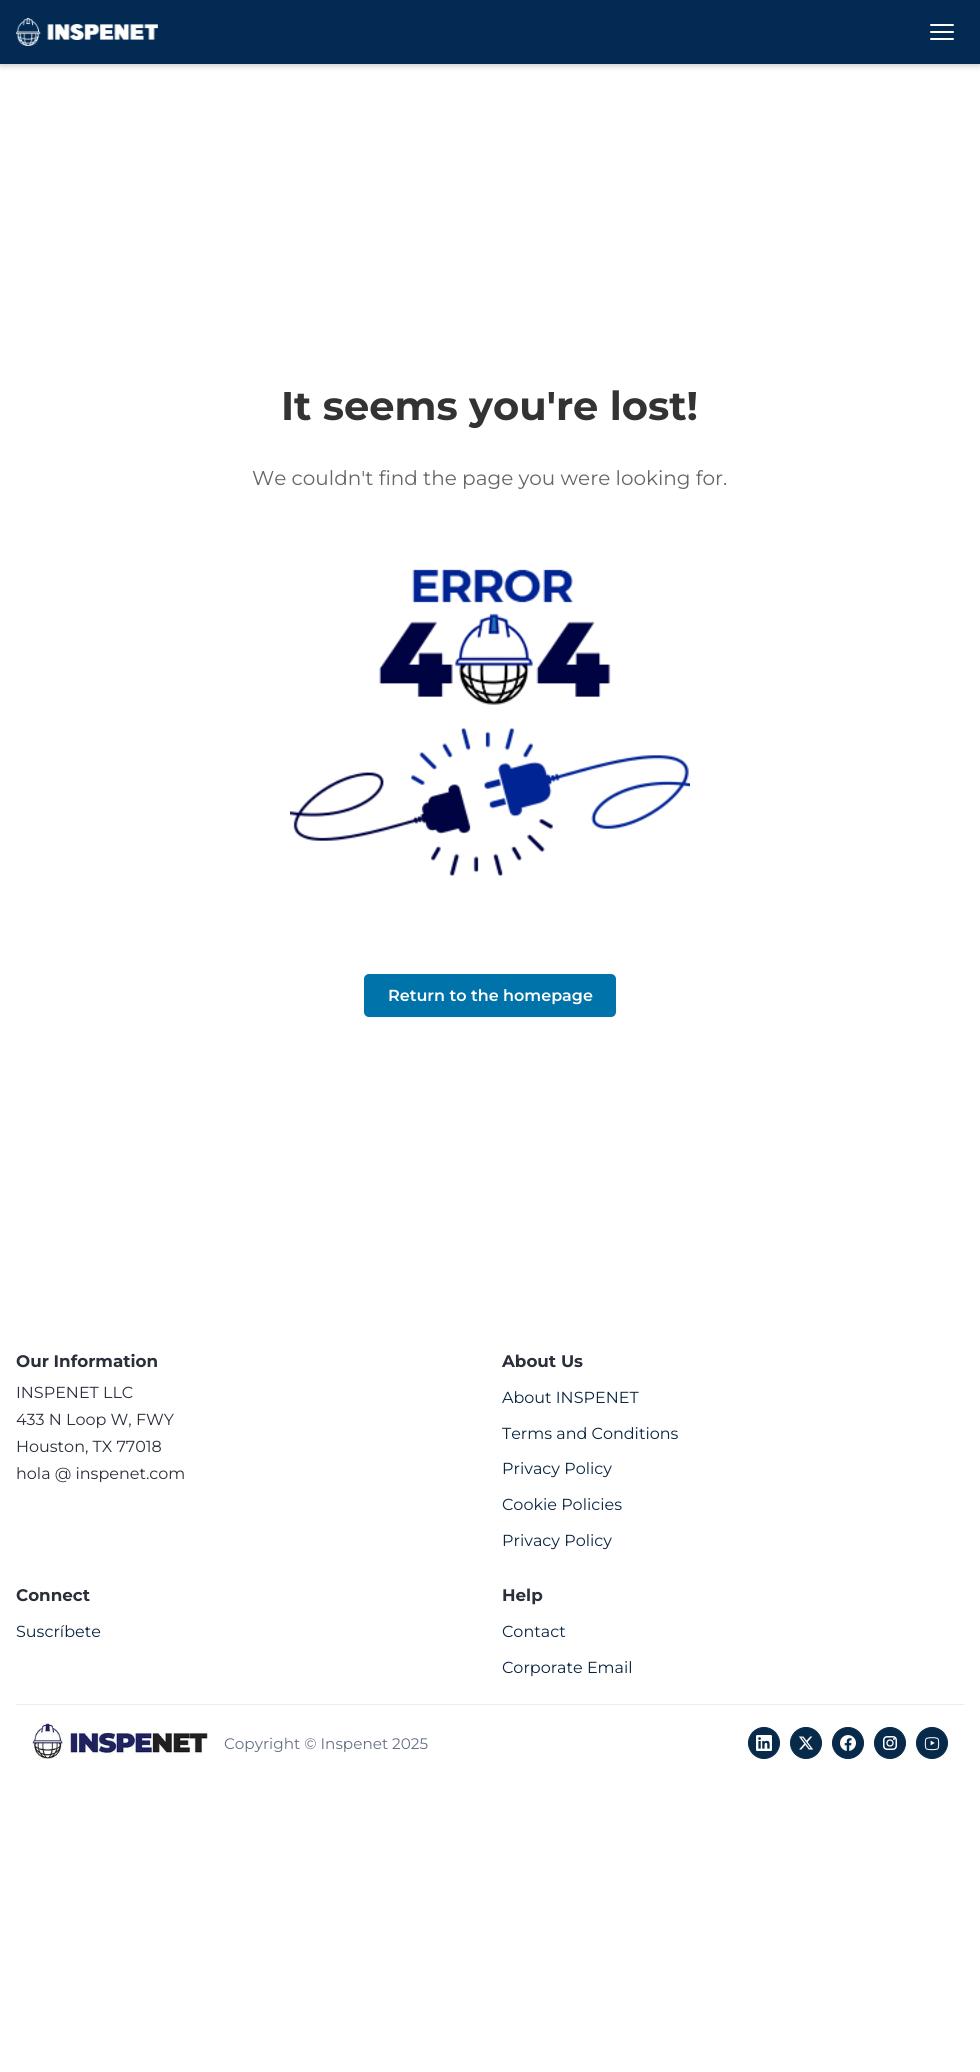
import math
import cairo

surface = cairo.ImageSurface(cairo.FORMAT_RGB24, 980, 2072)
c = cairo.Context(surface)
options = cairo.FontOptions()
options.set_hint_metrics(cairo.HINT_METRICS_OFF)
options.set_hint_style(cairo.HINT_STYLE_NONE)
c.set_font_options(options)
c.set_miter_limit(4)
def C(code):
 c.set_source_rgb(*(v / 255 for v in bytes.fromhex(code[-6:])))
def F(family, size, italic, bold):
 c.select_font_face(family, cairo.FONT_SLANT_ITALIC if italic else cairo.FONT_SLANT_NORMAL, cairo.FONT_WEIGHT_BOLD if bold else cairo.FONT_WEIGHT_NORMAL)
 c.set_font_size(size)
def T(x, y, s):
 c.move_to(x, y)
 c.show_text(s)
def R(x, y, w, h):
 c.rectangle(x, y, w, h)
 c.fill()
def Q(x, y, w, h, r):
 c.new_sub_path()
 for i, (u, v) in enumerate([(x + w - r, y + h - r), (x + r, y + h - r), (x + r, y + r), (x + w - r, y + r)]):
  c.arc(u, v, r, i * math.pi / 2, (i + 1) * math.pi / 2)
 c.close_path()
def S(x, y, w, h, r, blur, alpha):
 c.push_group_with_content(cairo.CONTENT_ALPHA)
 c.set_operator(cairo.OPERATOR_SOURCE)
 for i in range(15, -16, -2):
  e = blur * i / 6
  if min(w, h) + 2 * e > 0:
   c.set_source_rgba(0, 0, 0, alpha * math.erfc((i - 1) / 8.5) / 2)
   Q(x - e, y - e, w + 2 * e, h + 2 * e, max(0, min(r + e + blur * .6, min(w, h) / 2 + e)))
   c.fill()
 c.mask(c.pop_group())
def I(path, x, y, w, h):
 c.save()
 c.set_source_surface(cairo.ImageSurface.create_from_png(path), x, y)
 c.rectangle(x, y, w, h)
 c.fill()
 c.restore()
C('ffffff')
c.paint()
C('000000')
S(0,2,980,64,0,3,.2)
C('032a53')
R(0,0,980,64)
I('1.png',16,18,142,28)
C('ffffff')
Q(930,24,24,2,1)
c.fill()
Q(930,31,24,2,1)
c.fill()
Q(930,38,24,2,1)
c.fill()
F('Montserrat',40,0,1)
C('333333')
T(281,420,'It seems you\'re lost!')
F('Montserrat',20,0,0)
C('666666')
T(252,485,'We couldn\'t find the page you were looking for.')
I('2.png',290,569,400,307)
C('0073aa')
Q(364,974,252,43,5)
c.fill()
F('Montserrat SemiBold',16,0,0)
C('ffffff')
T(388,1001,'Return to the homepage')
F('Montserrat',16.75,0,1)
C('2a2f3a')
T(16,1367,'Our Information')
F('Montserrat',16,0,0)
T(16,1398,'INSPENET LLC')
T(16,1425,'433 N Loop W, FWY')
T(16,1452,'Houston, TX 77018')
T(16,1479,'hola @ inspenet.com')
F('Montserrat',16.75,0,1)
T(502,1367,'About Us')
F('Montserrat',16,0,0)
C('0a2540')
T(502,1403,'About INSPENET')
T(502,1439,'Terms and Conditions')
T(502,1474,'Privacy Policy')
T(502,1510,'Cookie Policies')
T(502,1546,'Privacy Policy')
F('Montserrat',16.75,0,1)
C('2a2f3a')
T(16,1601,'Connect')
F('Montserrat',16,0,0)
C('0a2540')
T(16,1637,'Suscríbete')
F('Montserrat',16.75,0,1)
C('2a2f3a')
T(502,1601,'Help')
F('Montserrat',16,0,0)
C('0a2540')
T(502,1637,'Contact')
T(502,1673,'Corporate Email')
C('e9edf3')
R(16,1704,948,1)
I('3.png',32,1723,176,36)
F('Montserrat',15.25,0,0)
C('667085')
T(224,1749,'Copyright © Inspenet 2025')
C('082a4a')
c.new_path()
c.arc(764,1743,15.5,0,2 * math.pi)
c.fill_preserve()
c.set_line_width(1)
c.stroke()
I('4.png',756,1735,16,16)
c.arc(806,1743,15.5,0,2 * math.pi)
c.fill_preserve()
c.stroke()
I('5.png',799,1736,15,14)
c.arc(848,1743,15.5,0,2 * math.pi)
c.fill_preserve()
c.stroke()
I('6.png',840,1735,16,16)
c.arc(890,1743,15.5,0,2 * math.pi)
c.fill_preserve()
c.stroke()
Q(883.75,1736.75,12.5,12.5,3.25)
C('ffffff')
c.set_line_width(1.5)
c.stroke()
c.arc(890,1743,3,0,2 * math.pi)
c.set_line_width(1.3)
c.stroke()
c.arc(894,1739,1,0,2 * math.pi)
c.fill()
C('082a4a')
c.arc(932,1743,15.5,0,2 * math.pi)
c.fill_preserve()
c.set_line_width(1)
c.stroke()
I('7.png',924,1737,16,14)
surface.write_to_png('o.png')
